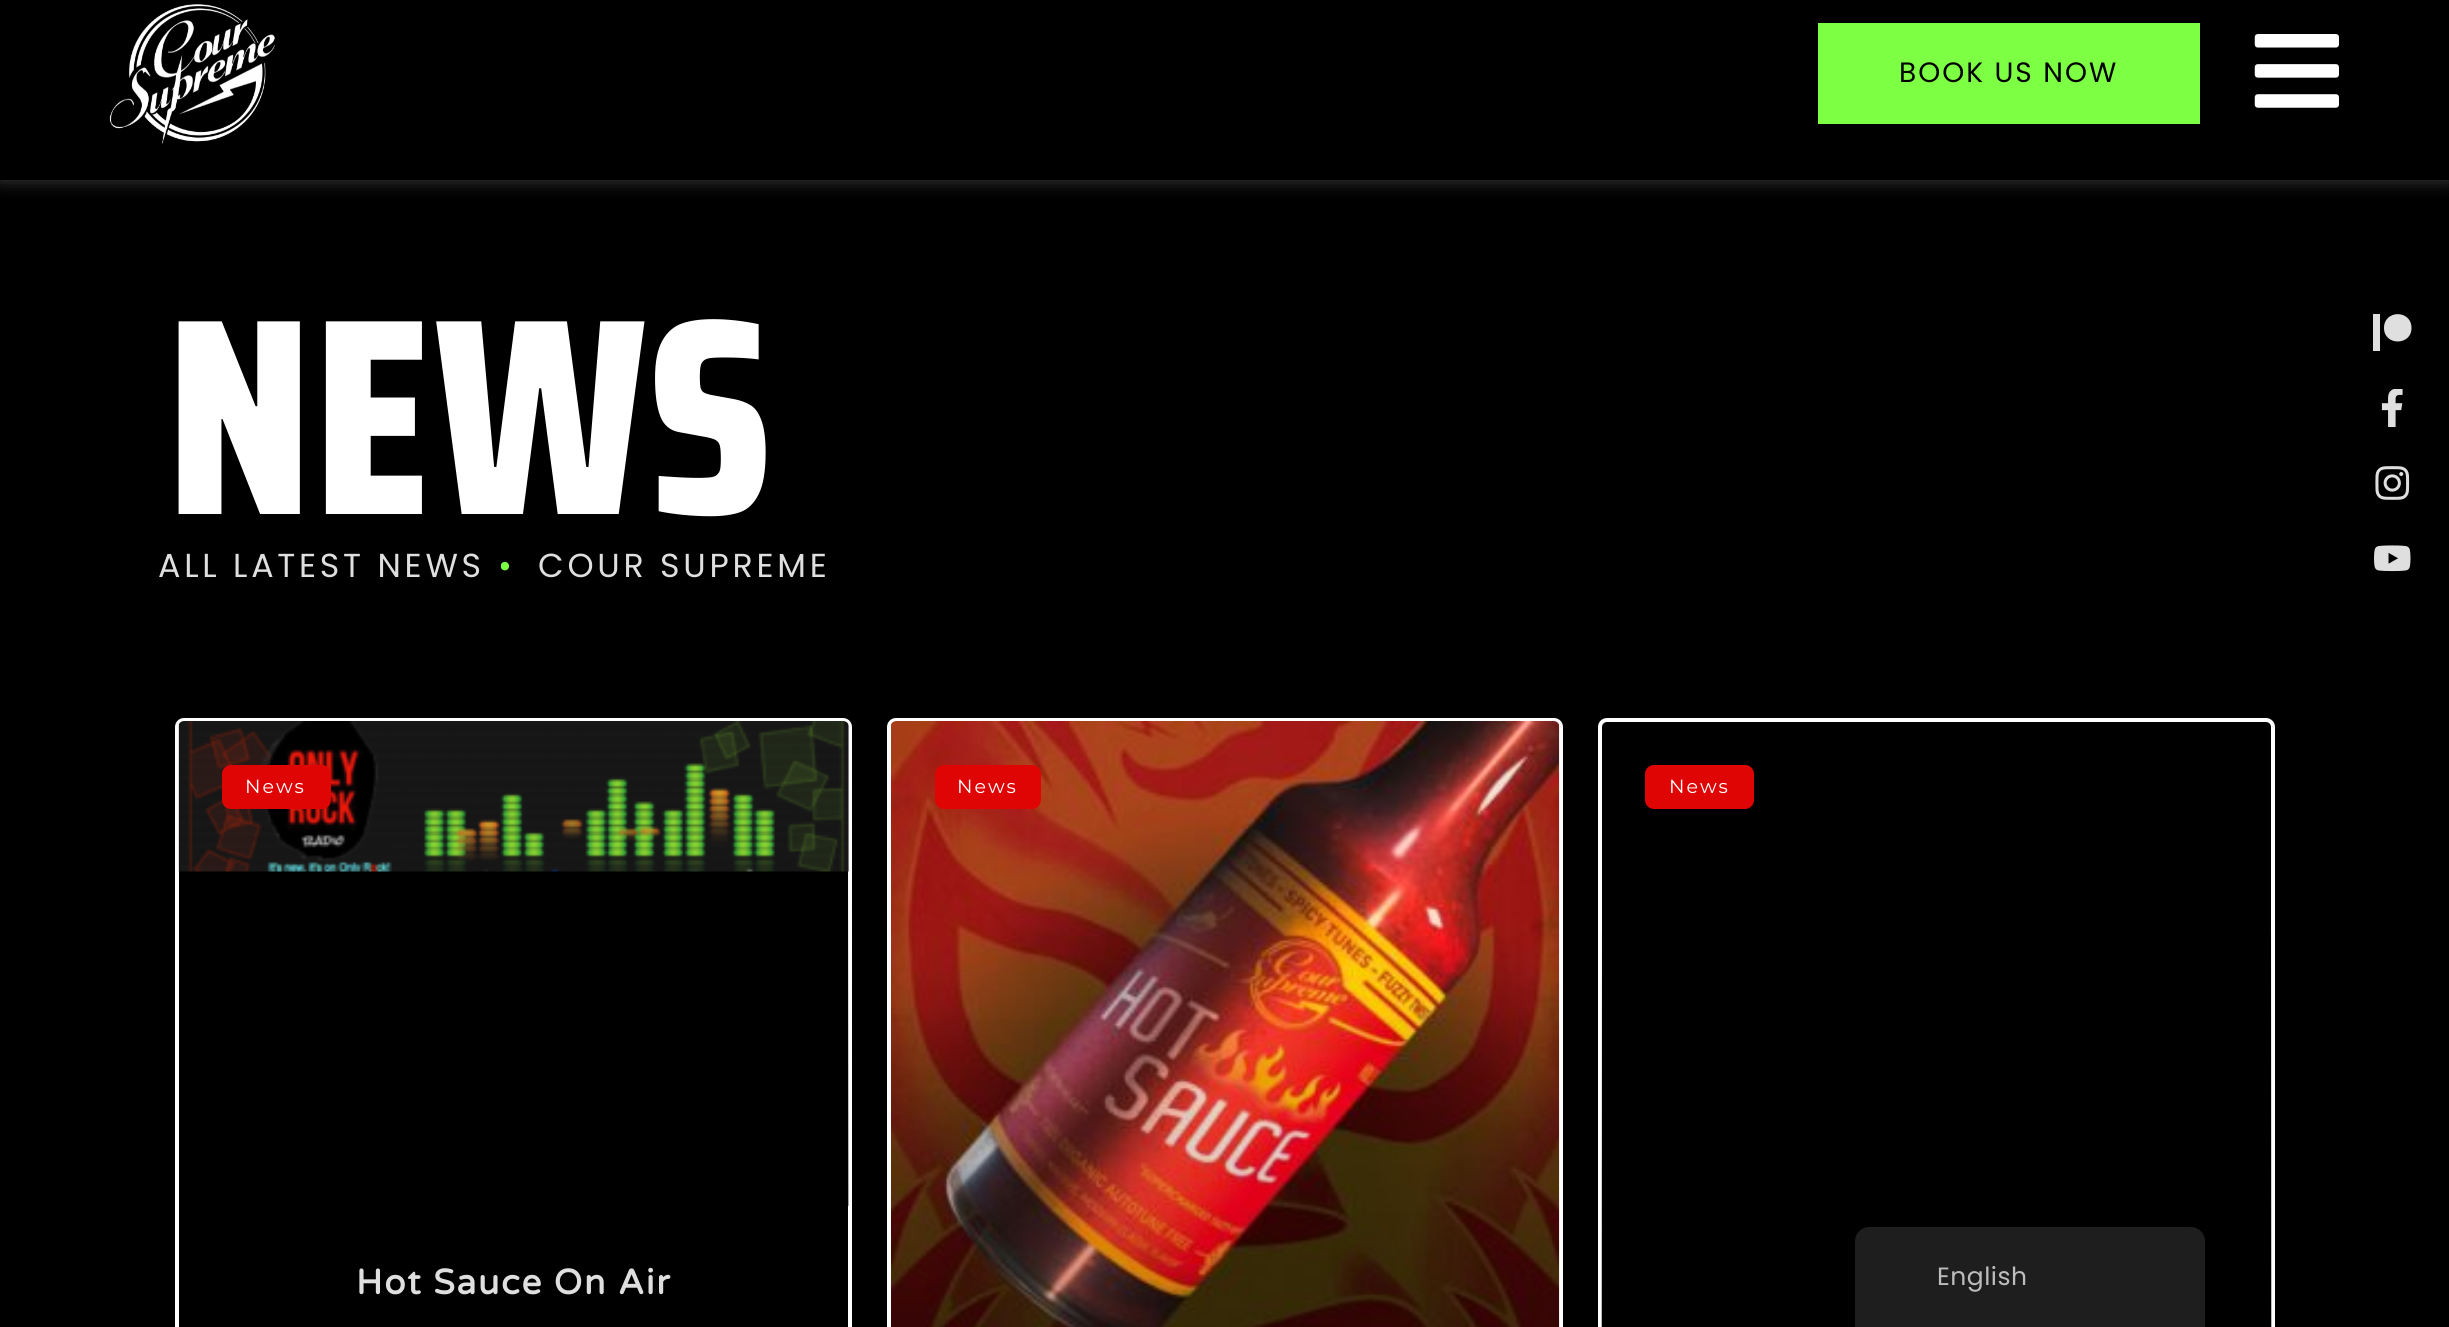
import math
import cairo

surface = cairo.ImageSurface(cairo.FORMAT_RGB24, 2449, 1327)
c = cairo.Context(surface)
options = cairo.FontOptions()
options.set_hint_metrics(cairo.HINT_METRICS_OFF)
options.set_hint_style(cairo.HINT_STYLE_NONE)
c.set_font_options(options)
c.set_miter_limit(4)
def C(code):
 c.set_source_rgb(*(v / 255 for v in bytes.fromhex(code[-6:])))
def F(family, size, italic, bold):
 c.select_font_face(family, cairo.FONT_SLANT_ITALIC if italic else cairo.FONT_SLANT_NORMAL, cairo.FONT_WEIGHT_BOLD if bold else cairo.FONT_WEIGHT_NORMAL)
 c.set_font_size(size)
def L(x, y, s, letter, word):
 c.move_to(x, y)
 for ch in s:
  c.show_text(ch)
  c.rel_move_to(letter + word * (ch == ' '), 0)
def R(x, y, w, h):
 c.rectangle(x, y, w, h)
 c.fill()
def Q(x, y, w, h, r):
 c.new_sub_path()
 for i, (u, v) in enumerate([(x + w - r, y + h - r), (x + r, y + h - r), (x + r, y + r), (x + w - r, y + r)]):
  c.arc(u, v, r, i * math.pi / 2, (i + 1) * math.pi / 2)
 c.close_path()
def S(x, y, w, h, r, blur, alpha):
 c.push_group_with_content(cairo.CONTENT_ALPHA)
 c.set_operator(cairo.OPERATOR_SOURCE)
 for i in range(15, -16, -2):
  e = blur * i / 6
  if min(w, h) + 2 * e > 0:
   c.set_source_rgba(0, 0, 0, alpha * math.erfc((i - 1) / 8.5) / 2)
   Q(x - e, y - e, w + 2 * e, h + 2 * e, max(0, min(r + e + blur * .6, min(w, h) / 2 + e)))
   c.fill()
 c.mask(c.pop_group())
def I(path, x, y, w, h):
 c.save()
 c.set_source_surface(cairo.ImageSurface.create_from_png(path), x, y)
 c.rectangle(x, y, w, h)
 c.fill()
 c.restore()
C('000000')
c.paint()
c.save()
c.rectangle(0,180,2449,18)
c.clip()
C('414141')
S(0,0,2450,180,0,9,1)
c.restore()
I('1.png',109,4,166,140)
C('7dff43')
R(1818,23,382,101)
F('Poppins',28,0,0)
C('000000')
L(1899,82,'BOOK US NOW',2,0)
I('2.png',2254,34,85,74)
F('Saira Condensed ExtraBold',280,0,0)
C('ffffff')
L(166,514,'NEWS',.5,0)
C('dfdfdf')
c.new_path()
c.move_to(2411.5,328)
c.curve_to(2411.5,346,2384,346,2384,328)
c.curve_to(2384,309.5,2411.5,309.5,2411.5,328)
c.close_path()
c.move_to(2373,351)
c.line_to(2380,351)
c.line_to(2380,314)
c.line_to(2373,314)
c.close_path()
c.fill()
I('3.png',2381,389,22,38)
I('4.png',2375,466,35,34)
I('5.png',2374,545,37,27)
F('Poppins',33.25,0,0)
L(158,577,'ALL LATEST NEWS',3.75,0)
I('6.png',501,562,8,9)
L(538,577,'COUR SUPREME',3.75,0)
Q(177,720,673,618,7)
C('ffffff')
c.set_line_width(4)
c.stroke()
I('7.png',178,721,671,151)
gradient = cairo.LinearGradient(514,1206,514,721)
gradient.add_color_stop_rgba(0,0,0,0,.35)
gradient.add_color_stop_rgba(.75,0,0,0,0)
c.set_source(gradient)
R(269,865,580,341)
C('df0505')
Q(222,765,109,44,9)
c.fill()
F('Montserrat',19,0,0)
C('ffffff')
L(245,793,'News',2,0)
F('Varela Round',35,0,1)
C('dfdfdf')
L(356,1294,'Hot Sauce On Air',1.75,0)
Q(889,720,672,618,7)
C('ffffff')
c.stroke()
I('8.png',891,721,669,606)
gradient = cairo.LinearGradient(1225,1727,1225,721)
gradient.add_color_stop_rgba(0,0,0,0,.35)
gradient.add_color_stop_rgba(.75,0,0,0,0)
c.set_source(gradient)
R(891,1019,668,308)
C('df0505')
Q(935,765,106,44,9)
c.fill()
F('Montserrat',19,0,0)
C('ffffff')
L(957,793,'News',2,0)
Q(1600,720,673,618,7)
c.stroke()
C('df0505')
Q(1645,765,109,44,9)
c.fill()
C('ffffff')
L(1669,793,'News',2,0)
gradient = cairo.LinearGradient(1936,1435,1936,721)
gradient.add_color_stop_rgba(0,0,0,0,.35)
gradient.add_color_stop_rgba(.75,0,0,0,0)
c.set_source(gradient)
R(1601,933,671,394)
C('1e1e1e')
c.new_path()
c.move_to(1869,1227)
c.line_to(2191,1227)
c.curve_to(2198.5,1227,2205,1233.5,2205,1241)
c.line_to(2205,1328)
c.line_to(1855,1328)
c.line_to(1855,1241)
c.curve_to(1855,1233.5,1861.5,1227,1869,1227)
c.close_path()
c.fill()
F('Poppins',25,0,0)
C('bdbdbd')
L(1937,1285,'English',.5,0)
surface.write_to_png('o.png')
